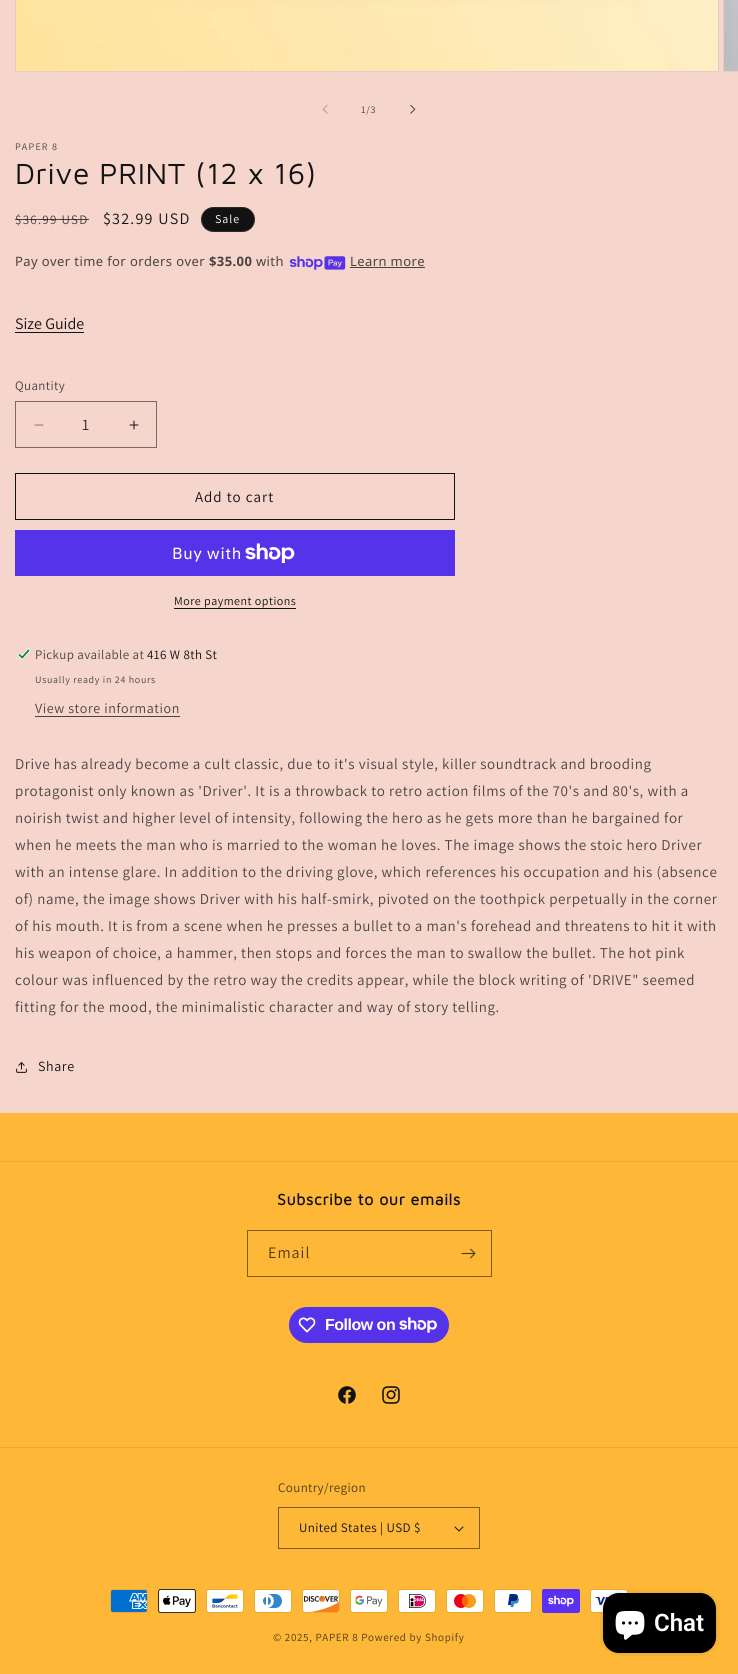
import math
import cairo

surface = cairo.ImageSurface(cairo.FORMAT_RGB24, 738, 1674)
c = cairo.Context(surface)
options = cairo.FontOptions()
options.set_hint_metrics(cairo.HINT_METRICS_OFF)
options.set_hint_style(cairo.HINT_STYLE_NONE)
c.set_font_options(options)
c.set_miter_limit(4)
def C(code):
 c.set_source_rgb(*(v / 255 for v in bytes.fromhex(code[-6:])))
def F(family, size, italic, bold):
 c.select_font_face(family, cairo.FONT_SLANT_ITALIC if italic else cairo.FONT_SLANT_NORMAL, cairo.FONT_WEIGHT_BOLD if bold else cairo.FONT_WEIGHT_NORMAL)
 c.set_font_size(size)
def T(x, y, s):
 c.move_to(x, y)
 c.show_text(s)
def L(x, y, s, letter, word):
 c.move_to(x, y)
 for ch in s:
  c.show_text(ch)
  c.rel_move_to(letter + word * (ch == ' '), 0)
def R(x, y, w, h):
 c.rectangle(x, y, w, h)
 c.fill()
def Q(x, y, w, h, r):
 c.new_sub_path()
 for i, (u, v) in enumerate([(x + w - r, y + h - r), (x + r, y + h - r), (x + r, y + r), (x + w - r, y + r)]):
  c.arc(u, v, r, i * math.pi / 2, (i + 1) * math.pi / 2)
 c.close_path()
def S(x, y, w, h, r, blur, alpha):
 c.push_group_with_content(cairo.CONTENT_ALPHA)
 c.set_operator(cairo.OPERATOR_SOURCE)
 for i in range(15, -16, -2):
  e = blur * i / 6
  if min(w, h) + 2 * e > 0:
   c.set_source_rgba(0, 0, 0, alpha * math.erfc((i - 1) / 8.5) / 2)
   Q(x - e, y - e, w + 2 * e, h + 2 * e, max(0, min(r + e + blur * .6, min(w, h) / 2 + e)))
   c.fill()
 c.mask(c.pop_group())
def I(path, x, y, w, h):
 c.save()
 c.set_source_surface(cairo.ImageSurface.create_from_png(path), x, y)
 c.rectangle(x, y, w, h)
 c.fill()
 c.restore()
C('feb737')
c.paint()
C('f6d5cc')
R(0,0,738,1113)
c.rectangle(15.5,-.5,703,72)
C('ebcbc3')
c.set_line_width(1)
c.stroke()
I('1.png',16,0,702,71)
c.rectangle(723.5,-.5,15,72)
c.stroke()
I('2.png',724,0,14,71)
I('3.png',322,104,6,10)
F('Assistant',10,0,0)
C('4b4341')
L(361,113,'1/3',.7,0)
I('4.png',410,104,6,10)
L(15,150,'PAPER 8',1.25,0)
F('Maven Pro',30,0,0)
C('121212')
L(15,184,'Drive PRINT (12 x 16)',.6,0)
F('Assistant',13,0,0)
C('4b4341')
L(15,224,'$36.99 USD',1.25,0)
c.set_source_rgba(0.071,0.071,0.071,0.75)
R(15,219,74,1)
F('Assistant',16,0,0)
C('121212')
L(103,224,'$32.99 USD',1.25,0)
Q(201,207,54,25,12.5)
c.fill()
Q(201.5,207.5,53,24,12)
c.set_source_rgba(1,1,1,0.1)
c.stroke()
F('Assistant',12,0,0)
C('ffffff')
L(215,223,'Sale',1,0)
F('Noto Sans',13,0,0)
C('4b4341')
L(15,266,'Pay over time for orders over',.4,0)
F('Noto Sans',13,0,1)
L(209,266,'$35.00',.4,0)
F('Noto Sans',13,0,0)
L(256,266,'with',.4,0)
I('5.png',289,256,57,14)
L(350,266,'Learn more',.4,0)
R(350,267,75,1)
F('Assistant',16,0,0)
C('121212')
T(15,329,'Size Guide')
R(15,332,69,1)
F('Assistant',13,0,0)
C('4b4341')
L(15,390,'Quantity',.4,0)
I('6.png',34,424,10,2)
I('7.png',129,420,10,10)
c.rectangle(15.5,401.5,141,46)
C('796a66')
c.stroke()
F('Assistant',16,0,0)
C('342f2e')
T(82,430,'1')
c.rectangle(15.5,473.5,439,46)
C('121212')
c.stroke()
F('Assistant',15,0,0)
L(195,502,'Add to cart',1,0)
C('5433eb')
R(15,530,440,46)
F('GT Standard',16,0,0)
C('ffffff')
L(172,559,'Buy with',.6,0)
I('8.png',245,543,50,20)
F('Assistant',12,0,0)
C('121212')
L(174,605,'More payment options',.5,0)
R(174,608,122,1)
I('9.png',17,648,14,12)
F('Assistant',13,0,0)
C('4b4341')
L(35,659,'Pickup available at',.4,0)
C('121212')
L(147,659,'416 W 8th St',.4,0)
F('Assistant',10,0,0)
C('4b4341')
L(35,683,'Usually ready in 24 hours',.7,0)
F('Assistant',14,0,0)
L(35,713,'View store information',.6,0)
R(35,716,145,1)
F('Assistant',15,0,0)
L(15,769,'Drive has already become a cult classic, due to it\'s visual style, killer soundtrack and brooding',.6,0)
L(15,796,'protagonist only known as \'Driver\'. It is a throwback to retro action films of the 70\'s and 80\'s, with a',.6,0)
L(15,823,'noirish twist and higher level of intensity, following the hero as he gets more than he bargained for',.6,0)
L(15,850,'when he meets the man who is married to the woman he loves. The image shows the stoic hero Driver',.6,0)
L(15,877,'with an intense glare. In addition to the driving glove, which references his occupation and his (absence',.6,0)
L(15,904,'of) name, the image shows Driver with his half-smirk, pivoted on the toothpick perpetually in the corner',.6,0)
L(15,931,'of his mouth. It is from a scene when he presses a bullet to a man\'s forehead and threatens to hit it with',.6,0)
L(15,958,'his weapon of choice, a hammer, then stops and forces the man to swallow the bullet. The hot pink',.6,0)
L(15,985,'colour was influenced by the retro way the credits appear, while the block writing of \'DRIVE" seemed',.6,0)
L(15,1012,'fitting for the mood, the minimalistic character and way of story telling.',.6,0)
I('10.png',16,1062,11,11)
F('Assistant',14,0,0)
C('121212')
L(38,1071,'Share',.6,0)
C('ebaa34')
R(0,1161,738,1)
F('Maven Pro',16,0,1)
C('121212')
L(277,1205,'Subscribe to our emails',.6,0)
c.rectangle(247.5,1230.5,244,46)
C('7c5c23')
c.stroke()
F('Assistant',16,0,0)
C('4d3b1b')
L(268,1258,'Email',1,0)
I('11.png',461,1248,15,11)
C('5433eb')
Q(289,1307,160,36,18)
c.fill()
I('12.png',298,1317,18,16)
F('Liberation Sans',16,0,1)
C('ffffff')
L(325,1330,'Follow on',-.5,0)
I('13.png',399,1317,38,16)
I('14.png',338,1386,18,18)
I('15.png',382,1386,18,18)
C('ebaa34')
R(0,1447,738,1)
F('Assistant',13,0,0)
C('4d3b1b')
L(278,1492,'Country/region',.4,0)
I('16.png',454,1526,10,6)
c.rectangle(278.5,1507.5,201,41)
C('7c5c23')
c.stroke()
C('121212')
L(299,1532,'United States | USD $',.4,0)
I('17.png',110,1589,38,24)
I('18.png',158,1589,38,24)
I('19.png',206,1589,38,24)
I('20.png',254,1589,38,24)
I('21.png',302,1589,38,24)
I('22.png',350,1589,38,24)
I('23.png',398,1589,38,24)
I('24.png',446,1589,38,24)
I('25.png',494,1589,38,24)
I('26.png',542,1589,38,24)
I('27.png',590,1589,38,24)
F('Assistant',11,0,0)
C('4d3b1b')
L(273,1641,'© 2025, PAPER 8 Powered by Shopify',.7,0)
C('000000')
S(603,1593,113,60,16,2.5,.15)
C('000000')
Q(603,1593,113,60,16)
c.fill()
I('28.png',615,1611,30,29)
F('Roboto SemiBold',24,0,0)
C('ffffff')
T(654,1631,'Chat')
surface.write_to_png('o.png')
